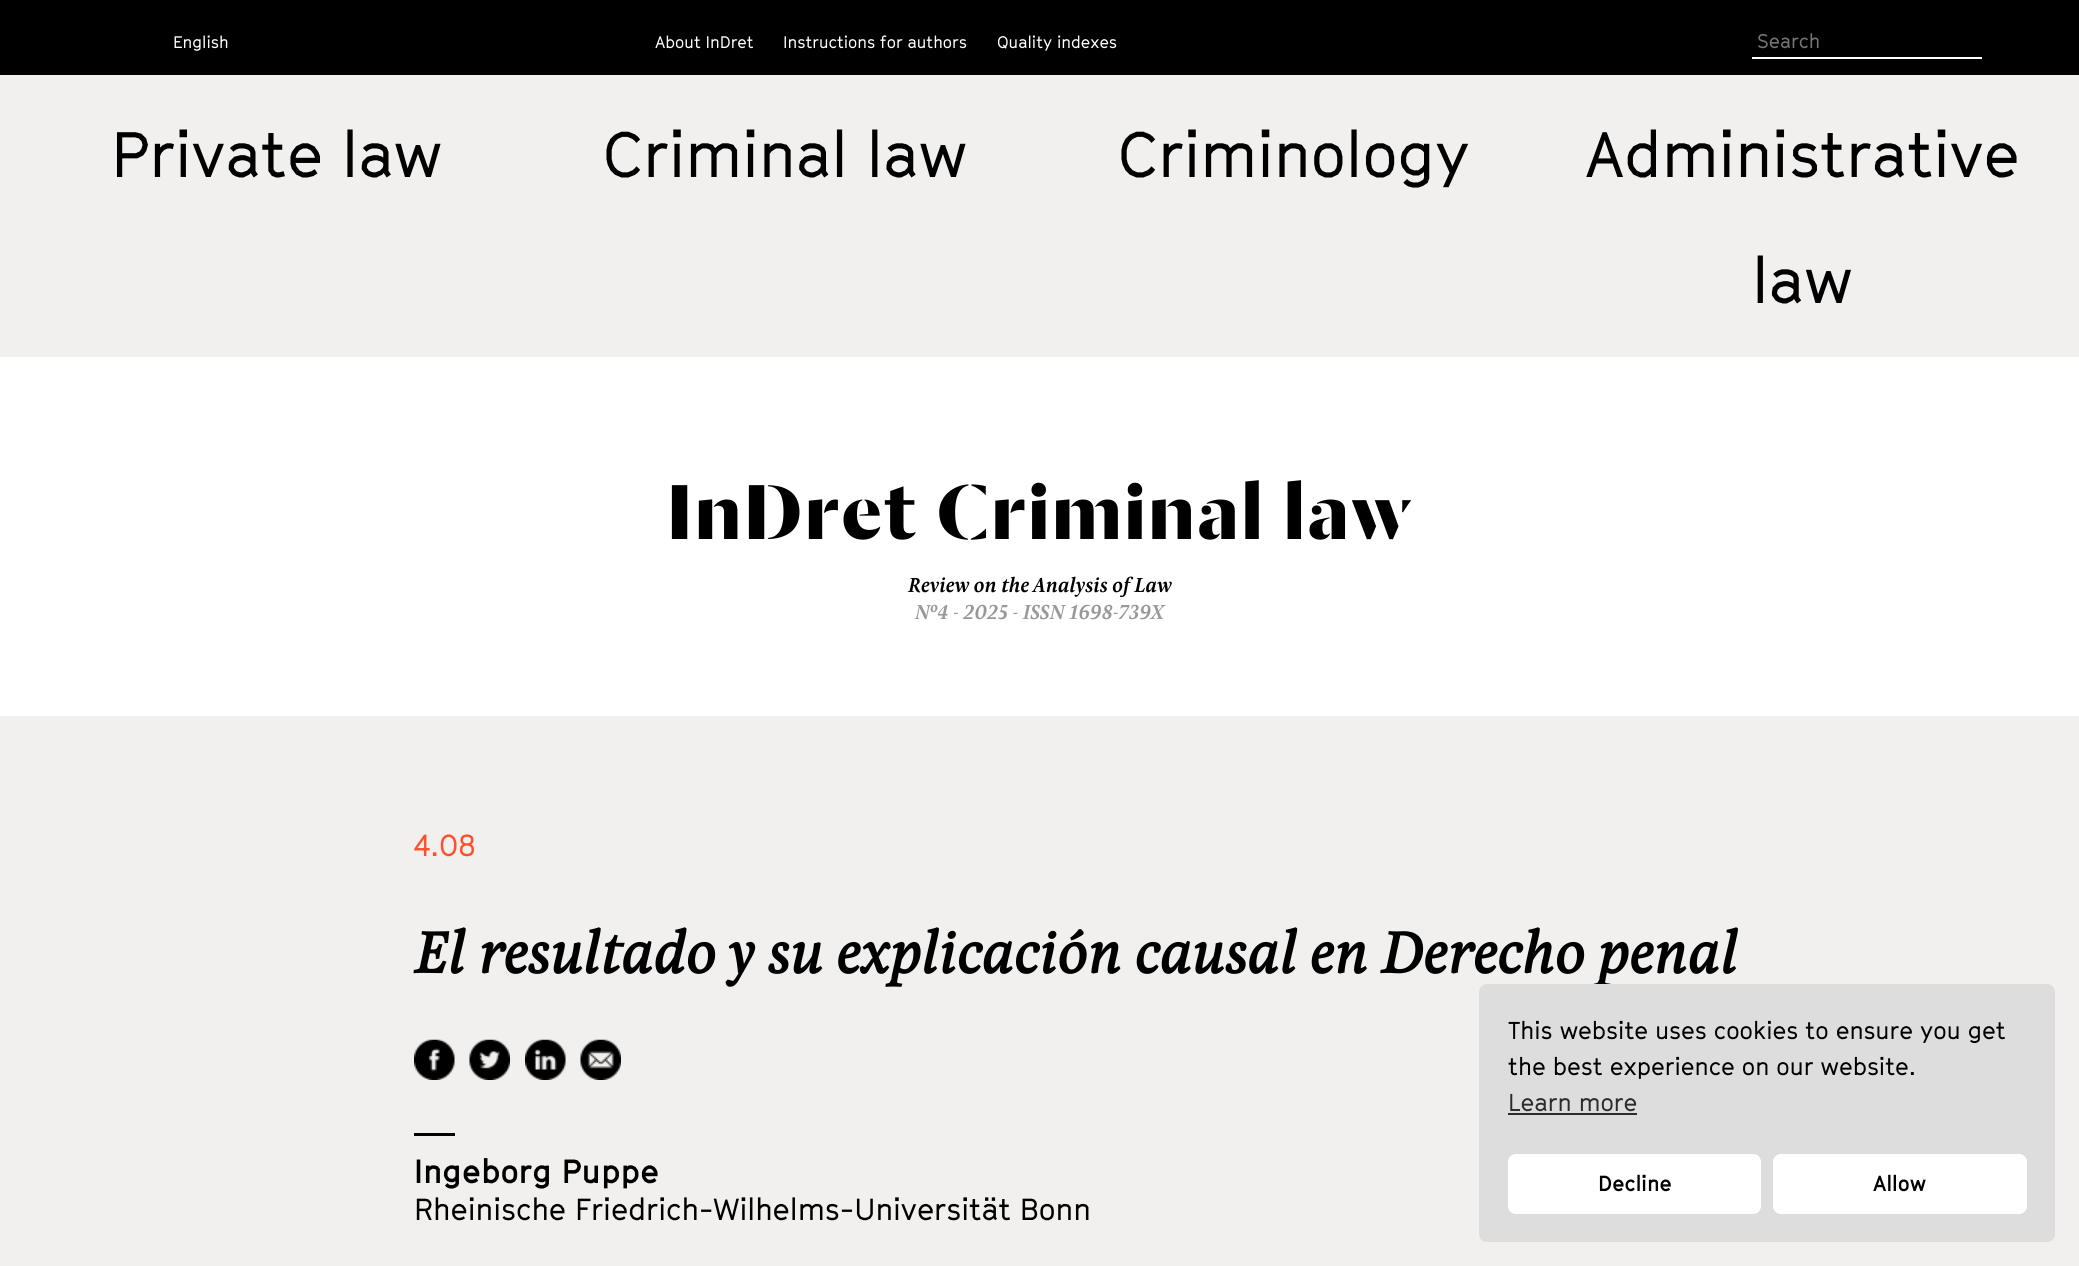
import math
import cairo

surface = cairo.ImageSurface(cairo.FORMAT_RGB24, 2079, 1266)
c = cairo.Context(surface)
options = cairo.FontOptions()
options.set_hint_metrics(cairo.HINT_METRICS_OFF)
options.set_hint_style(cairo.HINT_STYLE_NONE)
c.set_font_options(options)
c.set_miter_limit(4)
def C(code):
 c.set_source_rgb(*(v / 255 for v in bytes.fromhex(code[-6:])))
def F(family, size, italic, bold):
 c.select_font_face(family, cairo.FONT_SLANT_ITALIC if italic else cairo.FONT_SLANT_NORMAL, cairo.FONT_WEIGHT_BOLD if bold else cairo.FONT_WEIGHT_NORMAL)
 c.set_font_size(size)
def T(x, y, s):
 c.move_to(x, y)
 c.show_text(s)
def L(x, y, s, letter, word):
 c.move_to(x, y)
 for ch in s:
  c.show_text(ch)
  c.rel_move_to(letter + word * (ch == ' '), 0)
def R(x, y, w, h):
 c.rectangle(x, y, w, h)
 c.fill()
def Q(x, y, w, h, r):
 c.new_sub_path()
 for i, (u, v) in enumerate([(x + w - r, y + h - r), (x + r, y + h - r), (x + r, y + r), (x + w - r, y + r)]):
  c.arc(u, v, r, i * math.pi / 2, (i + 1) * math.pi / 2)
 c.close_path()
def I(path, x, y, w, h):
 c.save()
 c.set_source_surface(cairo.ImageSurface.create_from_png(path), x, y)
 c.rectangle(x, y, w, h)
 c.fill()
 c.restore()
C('ffffff')
c.paint()
C('000000')
R(0,0,2079,75)
F('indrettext',16.5,0,0)
C('ffffff')
T(173,48,'English')
T(655,48,'About InDret')
T(783,48,'Instructions for authors')
T(997,48,'Quality indexes')
R(1752,57,230,2)
F('indrettext',19.5,0,0)
C('757575')
T(1757,48,'Search')
C('f1f0ee')
R(0,75,2079,282)
F('indrettext',63,0,0)
C('000000')
T(111,177,'Private law')
T(603,177,'Criminal law')
T(1118,177,'Criminology')
T(1585,177,'Administrative')
T(1752,303,'law')
F('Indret',85.5,0,1)
L(667,539,'InDret Criminal law',3,0)
F('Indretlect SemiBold',21,1,0)
T(908,592,'Review on the Analysis of Law')
C('999999')
T(915,619,'Nº4 - 2025 - ISSN 1698-739X')
C('f1f0ee')
R(0,716,2079,550)
F('indrettext',30,0,0)
C('fd502c')
T(414,856,'4.08')
F('Indretlect',60,1,1)
C('000000')
T(414,973,'El resultado y su explicación causal en Derecho penal')
I('1.png',414,1039,41,41)
I('2.png',469,1039,41,41)
I('3.png',525,1039,41,41)
I('4.png',580,1039,41,41)
R(414,1133,41,3)
F('indrettext',33,0,1)
T(414,1183,'Ingeborg Puppe')
F('indrettext',30,0,0)
T(414,1220,'Rheinische Friedrich-Wilhelms-Universität Bonn')
C('dddddd')
Q(1479,984,576,258,8)
c.fill()
F('indrettext',24,0,0)
C('000000')
T(1508,1039,'This website uses cookies to ensure you get')
T(1508,1075,'the best experience on our website.')
C('2c2c2c')
T(1508,1111,'Learn more')
R(1508,1113,129,2)
C('ffffff')
Q(1508,1154,253,60,8)
c.fill()
F('indrettext',21.5,0,1)
C('000000')
T(1598,1191,'Decline')
C('ffffff')
Q(1773,1154,254,60,8)
c.fill()
C('000000')
T(1873,1191,'Allow')
surface.write_to_png('o.png')
